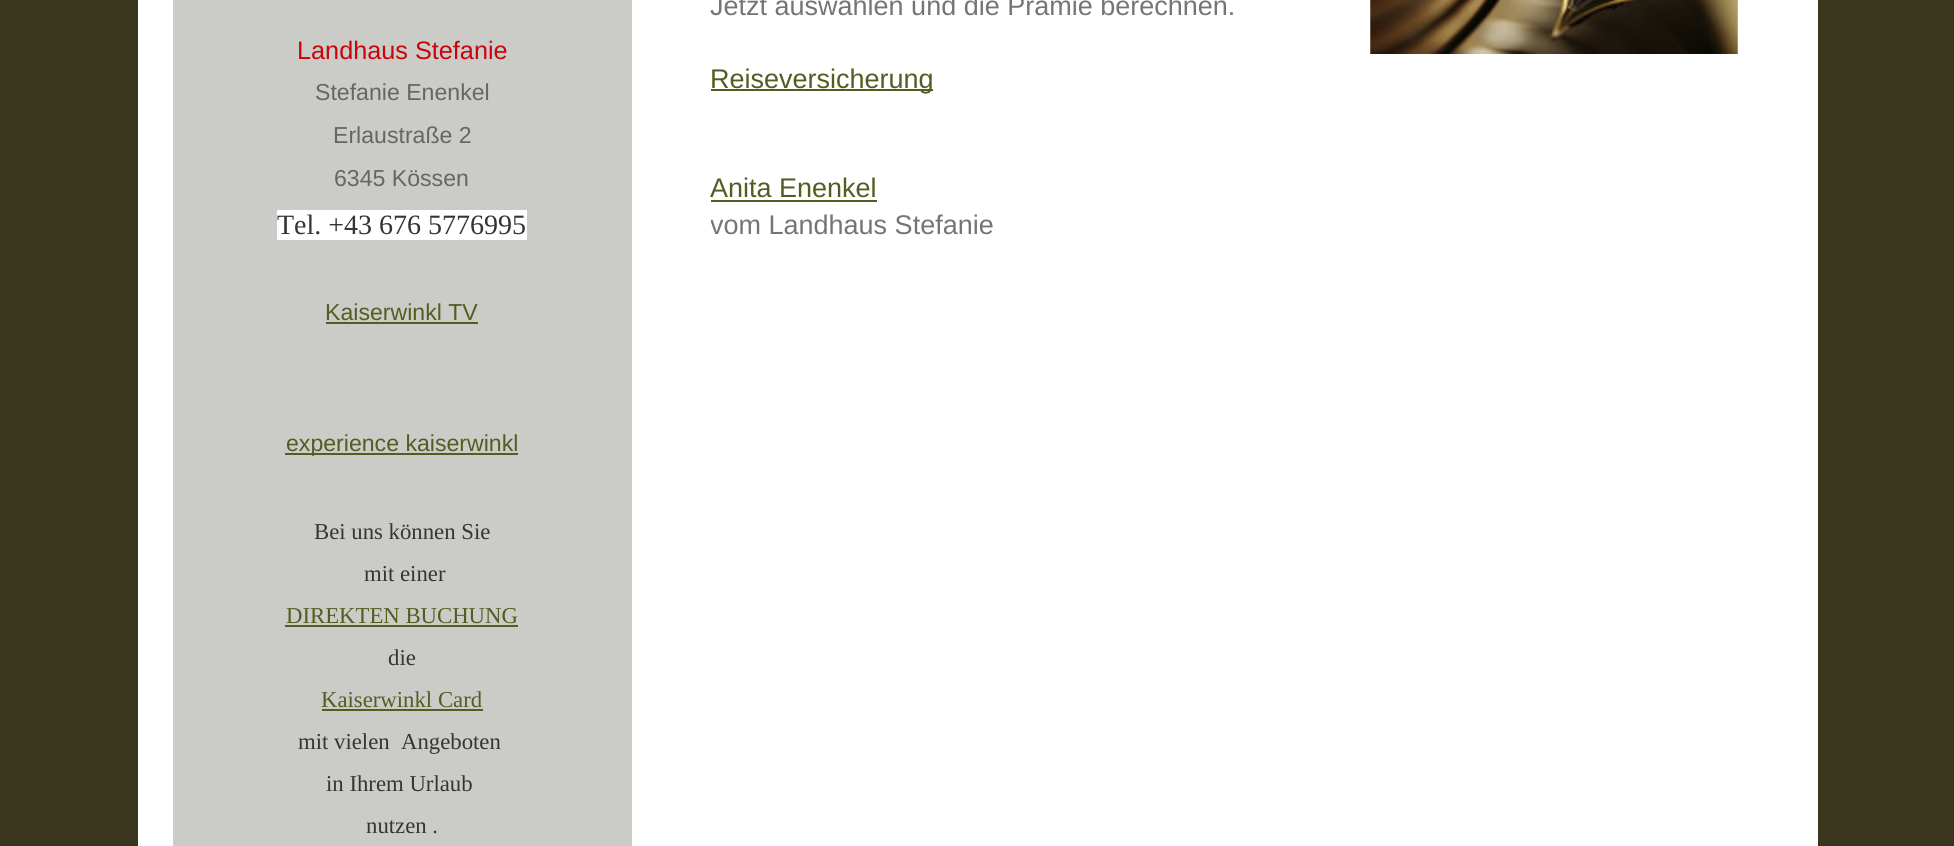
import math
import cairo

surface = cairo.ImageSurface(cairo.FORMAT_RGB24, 1954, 846)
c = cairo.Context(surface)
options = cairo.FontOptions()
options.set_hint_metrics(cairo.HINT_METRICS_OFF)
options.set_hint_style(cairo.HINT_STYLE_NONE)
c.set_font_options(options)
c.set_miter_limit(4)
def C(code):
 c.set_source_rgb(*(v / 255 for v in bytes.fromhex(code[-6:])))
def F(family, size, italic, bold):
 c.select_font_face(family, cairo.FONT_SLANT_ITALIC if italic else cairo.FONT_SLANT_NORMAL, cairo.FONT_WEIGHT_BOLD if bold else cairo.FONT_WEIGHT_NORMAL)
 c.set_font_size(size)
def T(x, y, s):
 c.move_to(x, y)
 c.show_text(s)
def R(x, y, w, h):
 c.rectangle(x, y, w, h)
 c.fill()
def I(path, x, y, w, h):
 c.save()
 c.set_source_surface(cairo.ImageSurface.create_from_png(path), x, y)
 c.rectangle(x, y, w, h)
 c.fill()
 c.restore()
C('39361d')
c.paint()
C('ffffff')
R(138,0,1680,846)
C('cbcbc7')
R(173,0,459,846)
F('Liberation Sans',27,0,0)
C('757575')
T(710,15,'Jetzt auswählen und die Prämie berechnen.')
C('515e21')
R(711,89,222,2)
T(710,88,'Reiseversicherung')
T(710,197,'Anita Enenkel')
R(711,200,166,2)
c.save()
c.rectangle(711,0,1029,243)
c.clip()
C('757575')
T(710,234,'vom Landhaus Stefanie')
c.restore()
I('1.png',1370,0,368,54)
F('Liberation Sans',25.25,0,0)
C('c90509')
T(297,59,'Landhaus Stefanie')
F('Liberation Sans',23.1,0,0)
C('666666')
T(315,100,'Stefanie Enenkel')
T(333,143,'Erlaustraße 2')
T(334,186,'6345 Kössen')
C('ffffff')
R(277,210,250,30)
F('Liberation Serif',28,0,0)
C('353535')
T(277,234,'Tel. +43 676 5776995')
F('Liberation Sans',23.1,0,0)
C('515e21')
T(325,320,'Kaiserwinkl TV')
R(326,322,152,2)
R(285,453,233,2)
T(286,451,'experience kaiserwinkl')
F('Liberation Serif',22.75,0,0)
C('353535')
T(314,539,'Bei uns können Sie')
T(364,581,'mit einer')
C('515e21')
T(286,623,'DIREKTEN BUCHUNG')
R(285,625,233,2)
C('353535')
T(388,665,'die')
C('515e21')
T(321,707,'Kaiserwinkl Card')
R(322,709,161,2)
C('353535')
T(298,749,'mit vielen  Angeboten')
T(326,791,'in Ihrem Urlaub')
T(366,833,'nutzen .')
surface.write_to_png('o.png')
